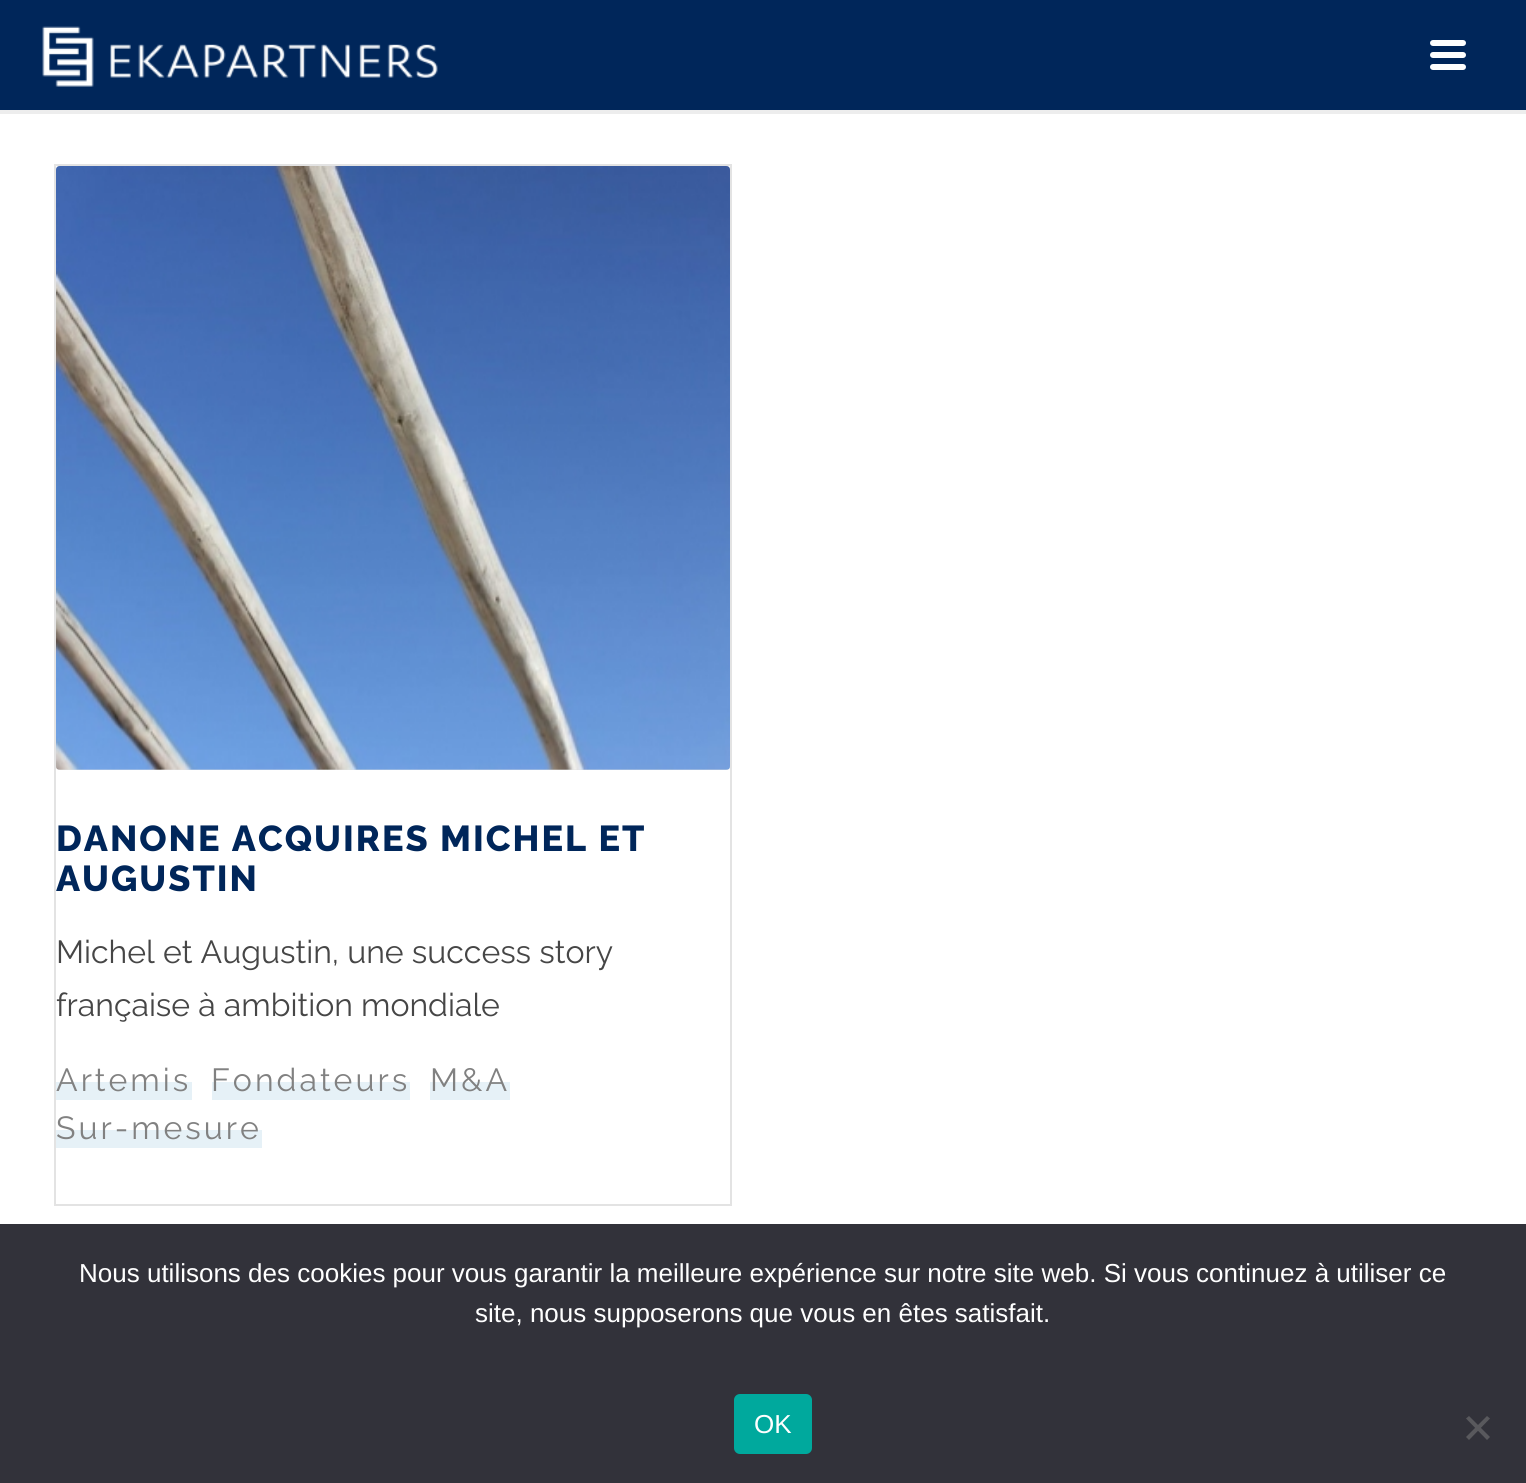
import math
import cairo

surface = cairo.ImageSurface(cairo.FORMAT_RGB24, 1526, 1483)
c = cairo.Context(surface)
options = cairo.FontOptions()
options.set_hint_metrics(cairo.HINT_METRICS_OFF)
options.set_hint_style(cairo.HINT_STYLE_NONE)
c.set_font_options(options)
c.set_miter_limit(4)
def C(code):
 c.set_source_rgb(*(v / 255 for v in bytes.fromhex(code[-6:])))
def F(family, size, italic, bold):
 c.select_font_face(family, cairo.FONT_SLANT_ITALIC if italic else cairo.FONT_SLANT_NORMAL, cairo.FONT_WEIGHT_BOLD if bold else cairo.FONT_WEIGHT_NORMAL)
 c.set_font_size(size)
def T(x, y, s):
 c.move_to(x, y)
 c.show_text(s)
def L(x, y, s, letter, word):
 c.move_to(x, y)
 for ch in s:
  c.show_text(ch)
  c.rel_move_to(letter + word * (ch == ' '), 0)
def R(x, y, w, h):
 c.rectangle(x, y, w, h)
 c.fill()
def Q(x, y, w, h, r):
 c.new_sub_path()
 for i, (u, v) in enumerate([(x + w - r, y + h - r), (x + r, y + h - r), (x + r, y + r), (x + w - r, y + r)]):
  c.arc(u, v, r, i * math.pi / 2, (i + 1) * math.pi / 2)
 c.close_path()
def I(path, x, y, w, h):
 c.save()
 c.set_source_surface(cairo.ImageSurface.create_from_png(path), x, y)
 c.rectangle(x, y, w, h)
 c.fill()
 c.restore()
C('ffffff')
c.paint()
C('ededed')
R(0,110,1526,4)
C('00265a')
R(0,0,1526,110)
I('1.png',42,26,396,61)
C('ffffff')
Q(1430,40,36,6,3)
c.fill()
Q(1430,52,36,6,3)
c.fill()
Q(1430,64,36,6,3)
c.fill()
c.rectangle(55,165,676,1040)
C('e3e3e3')
c.stroke()
C('e0e0e0')
Q(56,166,674,604,4)
c.fill()
I('2.png',56,166,674,604)
F('Raleway ExtraBold',36,0,0)
C('00265a')
L(56,851,'DANONE ACQUIRES MICHEL ET',2,0)
L(56,891,'AUGUSTIN',2,0)
F('Raleway',32,0,0)
C('464646')
T(56,963,'Michel et Augustin, une success story')
T(56,1016,'française à ambition mondiale')
C('e6f1f7')
R(56,1082,136,18)
C('818181')
L(56,1091,'Artemis',3,0)
C('e6f1f7')
R(212,1082,198,18)
C('818181')
L(211,1091,'Fondateurs',3,0)
C('e6f1f7')
R(430,1082,80,18)
C('818181')
L(430,1091,'M&A',3,0)
C('e6f1f7')
R(56,1130,206,18)
C('818181')
L(56,1139,'Sur-mesure',3,0)
C('32323a')
R(0,1224,1526,259)
F('Liberation Sans',26,0,0)
C('ffffff')
T(79,1282,'Nous utilisons des cookies pour vous garantir la meilleure expérience sur notre site web. Si vous continuez à utiliser ce')
T(475,1322,'site, nous supposerons que vous en êtes satisfait.')
C('00a99d')
Q(734,1394,78,60,6)
c.fill()
C('ffffff')
T(754,1433,'OK')
C('59595d')
c.new_path()
c.move_to(1487,1416)
c.line_to(1490,1418.5)
c.line_to(1469,1440)
c.line_to(1466,1437)
c.close_path()
c.fill()
c.new_path()
c.move_to(1466,1418.5)
c.line_to(1469,1416)
c.line_to(1490,1437)
c.line_to(1487,1440)
c.close_path()
c.fill()
surface.write_to_png('o.png')
